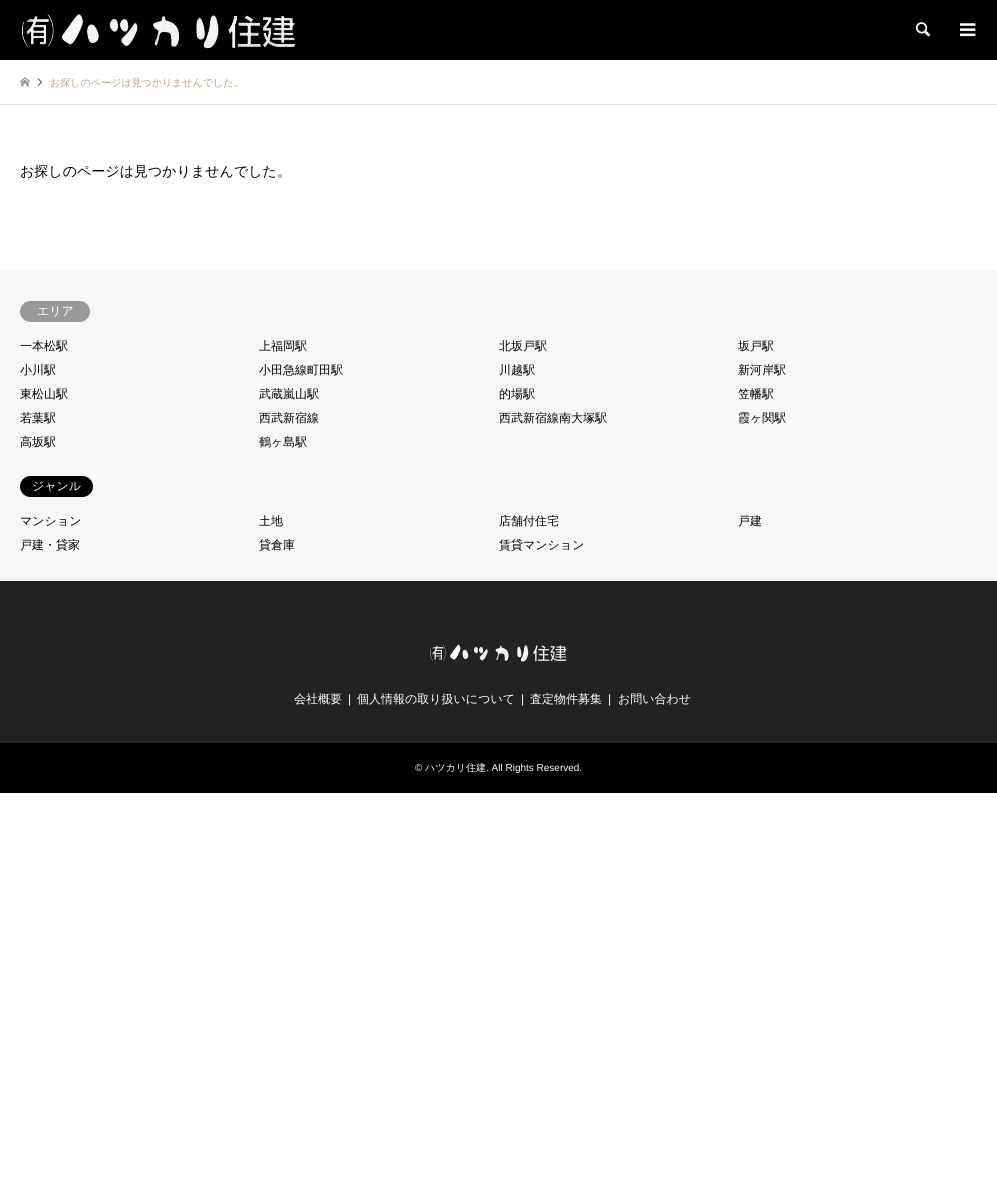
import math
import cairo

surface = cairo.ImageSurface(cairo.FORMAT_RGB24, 997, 1190)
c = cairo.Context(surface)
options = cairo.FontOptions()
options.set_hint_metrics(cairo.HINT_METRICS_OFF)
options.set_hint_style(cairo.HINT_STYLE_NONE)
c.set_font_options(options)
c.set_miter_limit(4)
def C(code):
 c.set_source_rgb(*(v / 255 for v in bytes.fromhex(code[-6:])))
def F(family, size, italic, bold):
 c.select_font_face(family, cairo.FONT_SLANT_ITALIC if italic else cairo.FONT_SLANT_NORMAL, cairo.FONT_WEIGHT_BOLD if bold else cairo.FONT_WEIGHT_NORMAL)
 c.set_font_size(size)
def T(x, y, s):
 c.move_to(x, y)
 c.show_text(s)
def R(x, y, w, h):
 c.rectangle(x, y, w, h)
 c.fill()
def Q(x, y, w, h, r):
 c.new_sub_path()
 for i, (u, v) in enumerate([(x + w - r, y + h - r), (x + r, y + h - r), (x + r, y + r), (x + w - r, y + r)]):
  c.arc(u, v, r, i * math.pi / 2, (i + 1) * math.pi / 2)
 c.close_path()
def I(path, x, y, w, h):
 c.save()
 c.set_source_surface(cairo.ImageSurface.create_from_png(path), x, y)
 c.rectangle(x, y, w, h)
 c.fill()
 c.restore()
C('ffffff')
c.paint()
C('000000')
R(0,0,997,60)
I('1.png',22,14,273,35)
I('2.png',915,22,16,15)
I('3.png',960,23,16,14)
C('dddddd')
R(0,104,997,1)
I('4.png',20,77,10,10)
I('5.png',37,78,5,8)
F('WenQuanYi Zen Hei Medium',10,0,0)
C('b69e84')
T(50,86,'お探しのページは見つかりませんでした。')
F('WenQuanYi Zen Hei Medium',14,0,0)
C('000000')
T(20,176,'お探しのページは見つかりませんでした。')
C('f7f7f7')
R(0,271,997,310)
C('999999')
Q(20,301,70,21,10.5)
c.fill()
F('WenQuanYi Zen Hei Medium',12,0,0)
C('ffffff')
T(37,315,'エリア')
C('000000')
T(20,350,'一本松駅')
T(259,350,'上福岡駅')
T(499,350,'北坂戸駅')
T(738,350,'坂戸駅')
T(20,374,'小川駅')
T(259,374,'小田急線町田駅')
T(499,374,'川越駅')
T(738,374,'新河岸駅')
T(20,398,'東松山駅')
T(259,398,'武蔵嵐山駅')
T(499,398,'的場駅')
T(738,398,'笠幡駅')
T(20,422,'若葉駅')
T(259,422,'西武新宿線')
T(499,422,'西武新宿線南大塚駅')
T(738,422,'霞ヶ関駅')
T(20,446,'高坂駅')
T(259,446,'鶴ヶ島駅')
Q(20,476,73,21,10.5)
c.fill()
C('ffffff')
T(32,490,'ジャンル')
C('000000')
T(20,525,'マンション')
T(259,525,'土地')
T(499,525,'店舗付住宅')
T(738,525,'戸建')
T(20,549,'戸建・貸家')
T(259,549,'貸倉庫')
T(499,549,'賃貸マンション')
C('222222')
R(0,581,997,162)
I('6.png',430,644,137,18)
C('ffffff')
T(294,703,'会社概要')
F('Liberation Sans',12,0,0)
T(348,703,'|')
F('WenQuanYi Zen Hei Medium',12,0,0)
T(357,703,'個人情報の取り扱いについて')
F('Liberation Sans',12,0,0)
T(521,703,'|')
F('WenQuanYi Zen Hei Medium',12,0,0)
T(530,703,'査定物件募集')
F('Liberation Sans',12,0,0)
T(608,703,'|')
F('WenQuanYi Zen Hei Medium',12,0,0)
T(618,703,'お問い合わせ')
C('000000')
R(0,743,997,50)
F('Liberation Sans',10,0,0)
C('ffffff')
T(415,771,'©')
F('WenQuanYi Zen Hei Medium',10,0,0)
T(425,771,'ハツカリ住建')
F('Liberation Sans',10,0,0)
T(486,771,'. All Rights Reserved.')
surface.write_to_png('o.png')
